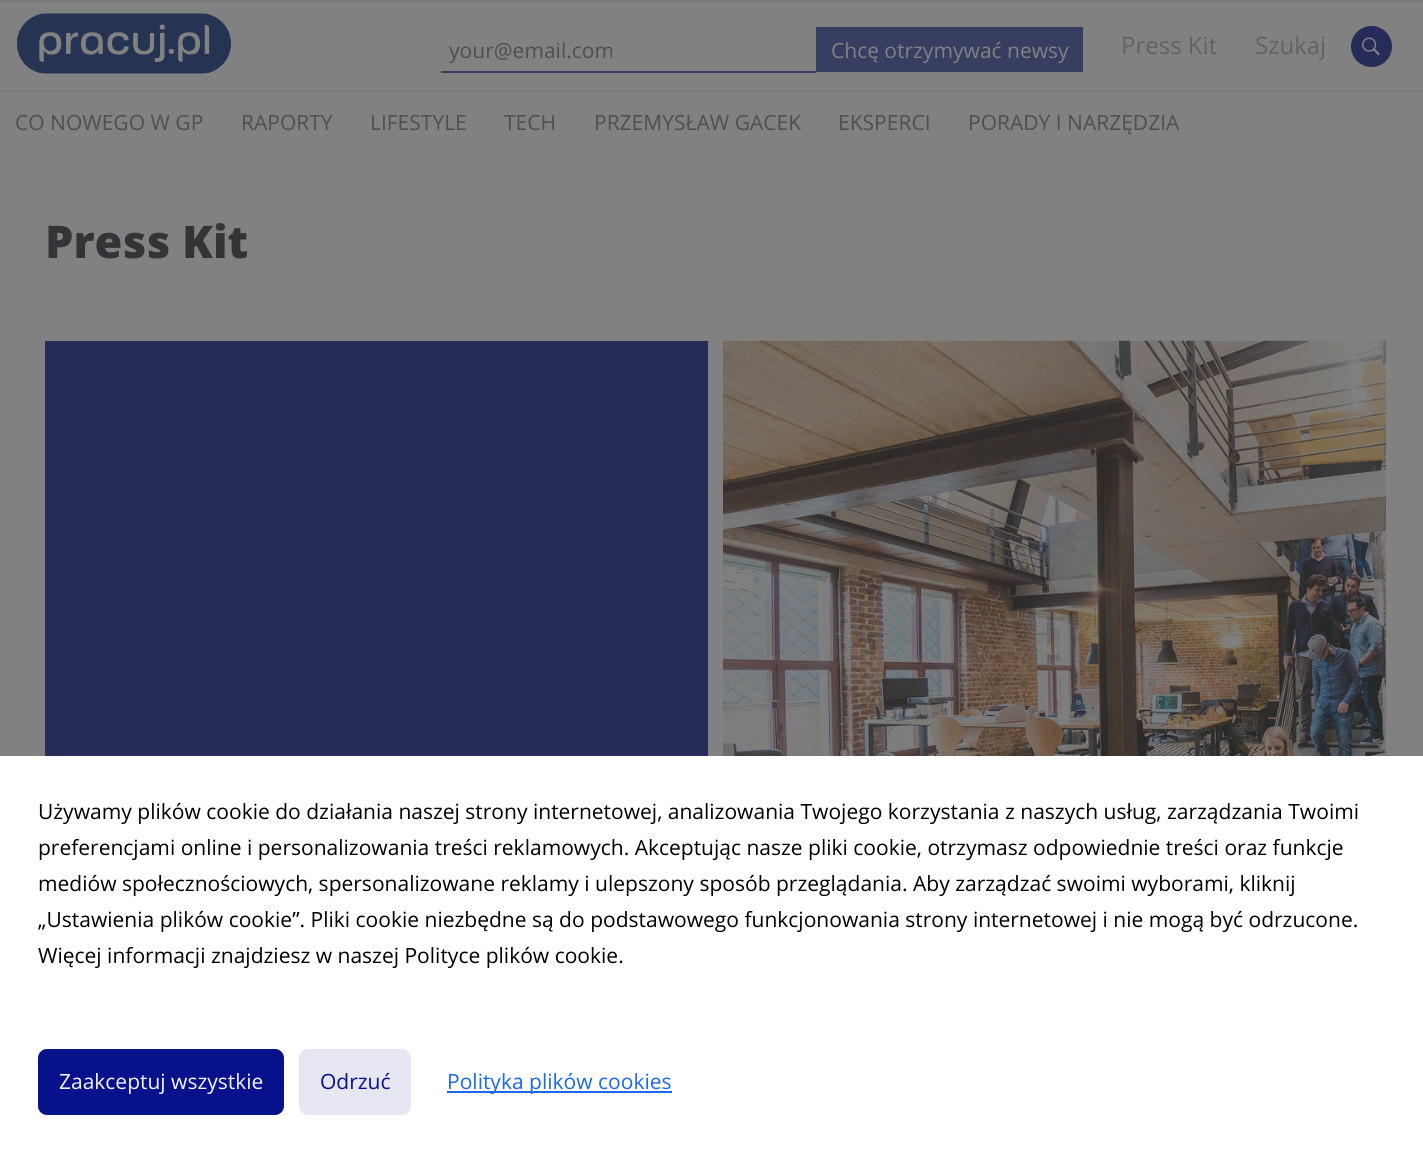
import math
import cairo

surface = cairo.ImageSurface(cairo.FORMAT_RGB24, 1423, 1152)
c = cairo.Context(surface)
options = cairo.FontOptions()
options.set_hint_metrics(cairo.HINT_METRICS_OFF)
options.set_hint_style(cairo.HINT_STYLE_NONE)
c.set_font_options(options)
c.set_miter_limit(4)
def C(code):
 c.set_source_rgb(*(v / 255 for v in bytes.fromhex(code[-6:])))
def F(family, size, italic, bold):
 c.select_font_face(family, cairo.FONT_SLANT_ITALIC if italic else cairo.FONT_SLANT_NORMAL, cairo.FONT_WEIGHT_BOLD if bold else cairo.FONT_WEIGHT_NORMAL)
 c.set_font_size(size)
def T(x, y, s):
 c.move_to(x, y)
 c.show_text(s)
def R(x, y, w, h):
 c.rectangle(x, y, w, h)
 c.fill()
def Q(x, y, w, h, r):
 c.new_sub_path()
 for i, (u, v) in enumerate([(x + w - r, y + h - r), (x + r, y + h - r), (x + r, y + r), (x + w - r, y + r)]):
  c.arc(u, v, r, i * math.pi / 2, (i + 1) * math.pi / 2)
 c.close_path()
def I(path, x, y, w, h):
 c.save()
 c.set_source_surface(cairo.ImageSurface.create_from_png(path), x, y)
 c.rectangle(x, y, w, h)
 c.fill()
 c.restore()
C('818181')
c.paint()
C('7b7b7b')
R(0,0,1423,2)
I('1.png',17,13,214,61)
C('373e62')
R(441,71,375,2)
c.save()
c.rectangle(449,35,367,28)
c.clip()
F('Open Sans',21,0,0)
C('4f4f4f')
T(449,58,'your@email.com')
c.restore()
R(816,27,267,45)
F('Open Sans',21,0,0)
C('818181')
T(831,58,'Chcę otrzymywać newsy')
F('Open Sans',24,0,0)
C('636363')
T(1121,54,'Press Kit')
T(1255,54,'Szukaj')
C('272b57')
c.new_path()
c.arc(1371.5,46.5,21.5,0,2 * math.pi)
c.fill_preserve()
C('818181')
c.stroke()
I('2.png',1362,37,18,19)
C('7b7b7b')
R(0,90,1423,2)
F('Open Sans',21,0,0)
C('4f4f4f')
T(15,130,'CO NOWEGO W GP')
T(241,130,'RAPORTY')
T(370,130,'LIFESTYLE')
T(504,130,'TECH')
T(594,130,'PRZEMYSŁAW GACEK')
T(838,130,'EKSPERCI')
T(968,130,'PORADY I NARZĘDZIA')
F('Open Sans ExtraBold',45,0,0)
C('323437')
T(45,258,'Press Kit')
C('272b57')
R(45,341,663,415)
I('3.png',723,340,663,416)
C('ffffff')
R(0,756,1423,396)
F('Open Sans',21,0,0)
C('000000')
T(38,819,'Używamy plików cookie do działania naszej strony internetowej, analizowania Twojego korzystania z naszych usług, zarządzania Twoimi')
T(38,855,'preferencjami online i personalizowania treści reklamowych. Akceptując nasze pliki cookie, otrzymasz odpowiednie treści oraz funkcje')
T(38,891,'mediów społecznościowych, spersonalizowane reklamy i ulepszony sposób przeglądania. Aby zarządzać swoimi wyborami, kliknij')
T(38,927,'„Ustawienia plików cookie”. Pliki cookie niezbędne są do podstawowego funkcjonowania strony internetowej i nie mogą być odrzucone.')
T(38,963,'Więcej informacji znajdziesz w naszej Polityce plików cookie.')
C('06118b')
Q(38,1049,246,66,9)
c.fill()
C('f5f4ff')
T(59,1089,'Zaakceptuj wszystkie')
C('e6e7f3')
Q(299,1049,112,66,9)
c.fill()
C('06118b')
T(320,1089,'Odrzuć')
C('1a69ef')
R(447,1091,225,2)
T(447,1089,'Polityka plików cookies')
surface.write_to_png('o.png')
